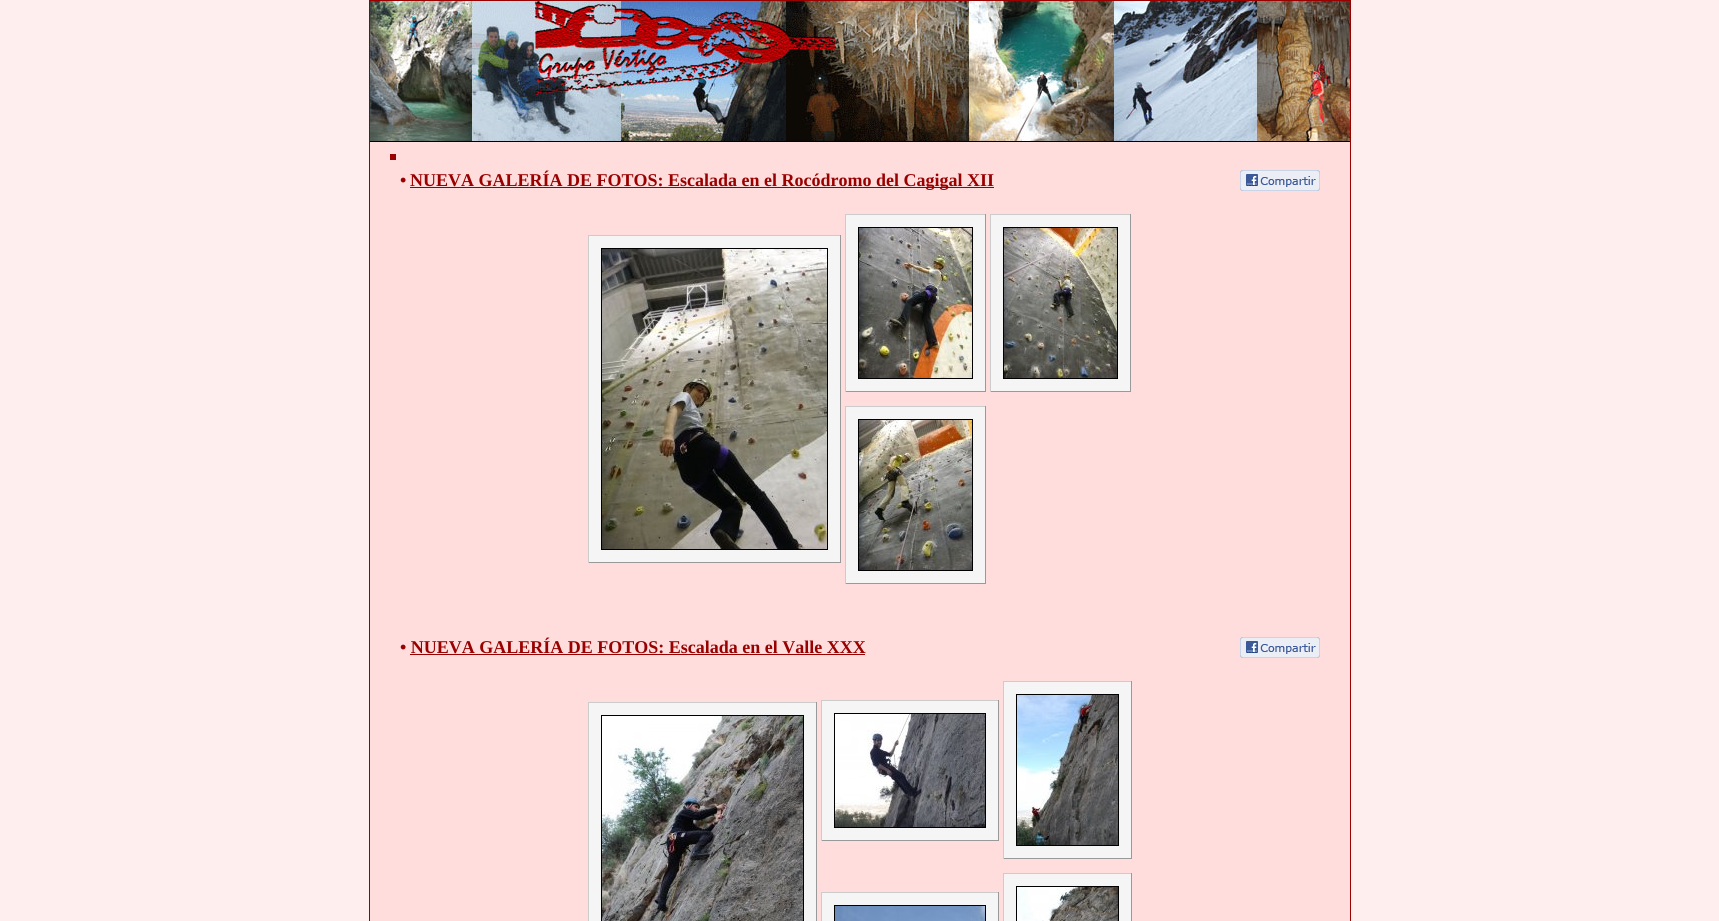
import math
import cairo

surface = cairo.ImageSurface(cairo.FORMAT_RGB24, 1719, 921)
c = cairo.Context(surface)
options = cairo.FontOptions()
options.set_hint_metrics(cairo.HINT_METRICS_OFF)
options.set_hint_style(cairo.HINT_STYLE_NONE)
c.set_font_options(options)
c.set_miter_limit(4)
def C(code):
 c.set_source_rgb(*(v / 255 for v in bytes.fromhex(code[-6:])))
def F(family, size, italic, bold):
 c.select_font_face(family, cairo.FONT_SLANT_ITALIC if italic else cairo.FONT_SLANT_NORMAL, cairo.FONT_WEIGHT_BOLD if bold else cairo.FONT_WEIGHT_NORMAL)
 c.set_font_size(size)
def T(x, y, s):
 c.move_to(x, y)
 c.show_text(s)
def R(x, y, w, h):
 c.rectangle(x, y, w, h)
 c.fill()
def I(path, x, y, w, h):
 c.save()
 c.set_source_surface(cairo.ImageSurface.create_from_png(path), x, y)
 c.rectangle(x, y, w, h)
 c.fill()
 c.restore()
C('ffeeee')
c.paint()
c.rectangle(369.5,.5,981,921)
C('990000')
c.set_line_width(1)
c.stroke()
I('1.png',370,1,980,140)
C('ffdddd')
R(370,142,980,779)
C('000000')
R(370,141,980,1)
C('990000')
R(390,154,6,6)
F('Liberation Serif',18,0,1)
T(400,186,'•')
R(410,187,584,1)
T(410,186,'NUEVA GALERÍA DE FOTOS: Escalada en el Rocódromo del Cagigal XII')
I('2.png',1240,170,80,21)
C('f5f5f5')
R(589,236,251,326)
C('cccccc')
R(588,235,253,1)
C('999999')
R(840,235,1,328)
R(588,562,253,1)
C('cccccc')
R(588,235,1,328)
c.rectangle(601.5,248.5,226,301)
C('000000')
c.stroke()
I('3.png',602,249,225,300)
C('f5f5f5')
R(846,215,139,176)
C('cccccc')
R(845,214,141,1)
C('999999')
R(985,214,1,178)
R(845,391,141,1)
C('cccccc')
R(845,214,1,178)
c.rectangle(858.5,227.5,114,151)
C('000000')
c.stroke()
I('4.png',859,228,113,150)
C('f5f5f5')
R(991,215,139,176)
C('cccccc')
R(990,214,141,1)
C('999999')
R(1130,214,1,178)
R(990,391,141,1)
C('cccccc')
R(990,214,1,178)
c.rectangle(1003.5,227.5,114,151)
C('000000')
c.stroke()
I('5.png',1004,228,113,150)
C('f5f5f5')
R(846,407,139,176)
C('cccccc')
R(845,406,141,1)
C('999999')
R(985,406,1,178)
R(845,583,141,1)
C('cccccc')
R(845,406,1,178)
c.rectangle(858.5,419.5,114,151)
C('000000')
c.stroke()
I('6.png',859,420,113,150)
C('990000')
T(400,653,'• NUEVA GALERÍA DE FOTOS: Escalada en el Valle XXX')
R(410,654,455,1)
I('2.png',1240,637,80,21)
C('f5f5f5')
R(589,703,227,218)
C('cccccc')
R(588,702,229,1)
C('999999')
R(816,702,1,219)
C('cccccc')
R(588,702,1,219)
c.rectangle(601.5,715.5,202,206)
C('000000')
c.stroke()
I('7.png',602,716,201,205)
C('f5f5f5')
R(822,701,176,139)
C('cccccc')
R(821,700,178,1)
C('999999')
R(998,700,1,141)
R(821,840,178,1)
C('cccccc')
R(821,700,1,141)
c.rectangle(834.5,713.5,151,114)
C('000000')
c.stroke()
I('8.png',835,714,150,113)
C('f5f5f5')
R(1004,682,127,176)
C('cccccc')
R(1003,681,129,1)
C('999999')
R(1131,681,1,178)
R(1003,858,129,1)
C('cccccc')
R(1003,681,1,178)
c.rectangle(1016.5,694.5,102,151)
C('000000')
c.stroke()
I('9.png',1017,695,101,150)
C('f5f5f5')
R(822,893,176,28)
C('cccccc')
R(821,892,178,1)
C('999999')
R(998,892,1,29)
C('cccccc')
R(821,892,1,29)
c.rectangle(834.5,905.5,151,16)
C('000000')
c.stroke()
I('10.png',835,906,150,15)
C('f5f5f5')
R(1004,874,127,47)
C('cccccc')
R(1003,873,129,1)
C('999999')
R(1131,873,1,48)
C('cccccc')
R(1003,873,1,48)
c.rectangle(1016.5,886.5,102,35)
C('000000')
c.stroke()
I('11.png',1017,887,101,34)
surface.write_to_png('o.png')
